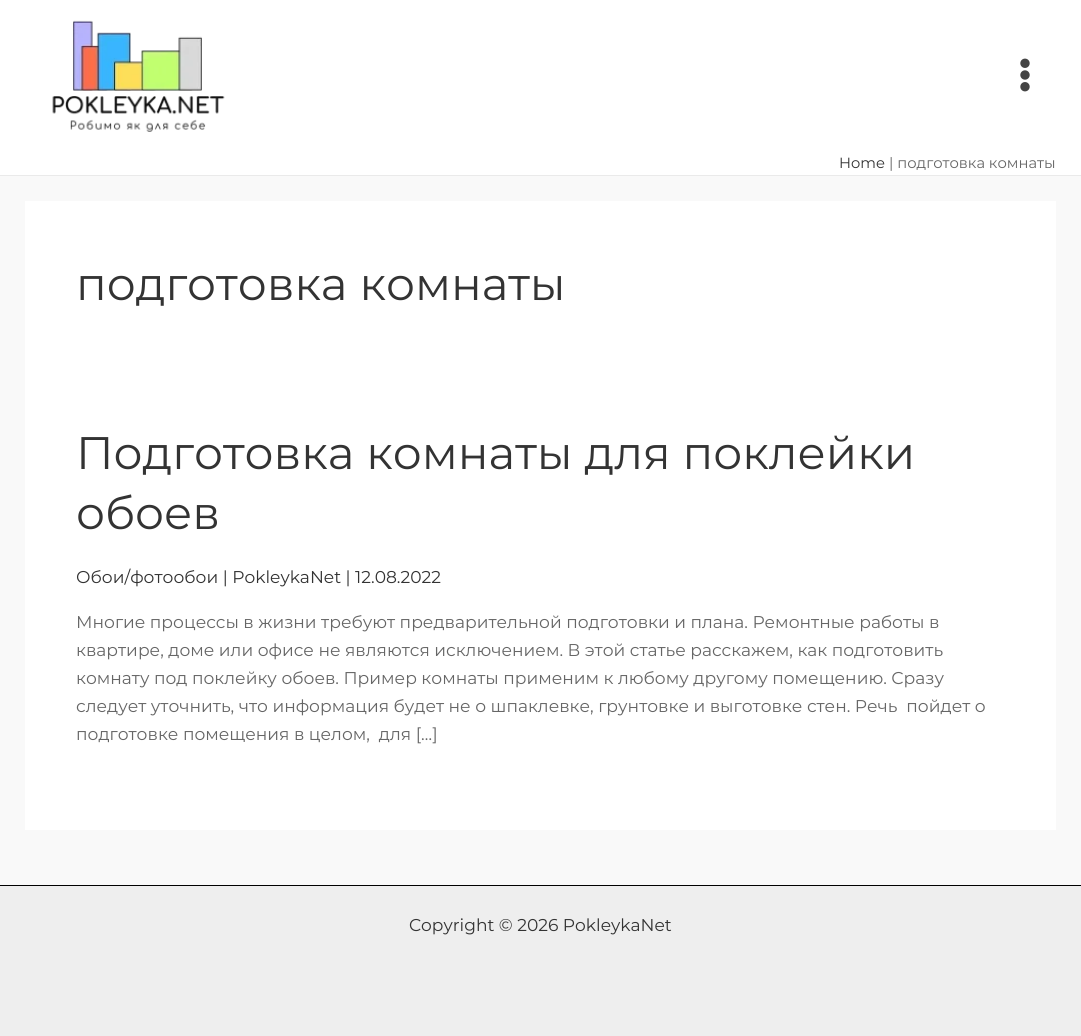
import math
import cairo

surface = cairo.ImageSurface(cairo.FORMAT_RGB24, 1081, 1036)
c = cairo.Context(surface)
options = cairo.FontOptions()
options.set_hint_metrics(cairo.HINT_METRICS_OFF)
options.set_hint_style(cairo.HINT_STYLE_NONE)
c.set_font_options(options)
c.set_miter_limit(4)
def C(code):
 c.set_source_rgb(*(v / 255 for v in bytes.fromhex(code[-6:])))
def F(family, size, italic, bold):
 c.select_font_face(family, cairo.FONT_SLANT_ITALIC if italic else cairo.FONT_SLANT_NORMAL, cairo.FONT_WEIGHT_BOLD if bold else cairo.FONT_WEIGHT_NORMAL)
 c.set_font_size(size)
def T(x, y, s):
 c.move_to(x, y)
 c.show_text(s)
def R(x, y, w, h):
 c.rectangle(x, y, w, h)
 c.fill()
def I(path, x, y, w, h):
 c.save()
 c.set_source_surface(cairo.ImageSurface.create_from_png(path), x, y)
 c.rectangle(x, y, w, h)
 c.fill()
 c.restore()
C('f9f9f9')
c.paint()
C('ffffff')
R(0,0,1081,175)
C('eaeaea')
R(0,175,1081,1)
I('1.png',52,20,173,112)
I('2.png',1020,58,10,34)
F('Montserrat Thin',14.75,0,0)
C('333333')
T(839,168,'Home')
C('666666')
T(889,168,'| подготовка комнаты')
C('ffffff')
R(25,201,1031,629)
F('Montserrat Thin',45.6,0,0)
C('333333')
T(76,300,'подготовка комнаты')
T(76,469,'Подготовка комнаты для поклейки')
T(76,529,'обоев')
F('Montserrat Thin',17.1,0,0)
T(76,583,'Обои/фотообои | PokleykaNet | 12.08.2022')
C('666666')
T(76,628,'Многие процессы в жизни требуют предварительной подготовки и плана. Ремонтные работы в')
T(76,656,'квартире, доме или офисе не являются исключением. В этой статье расскажем, как подготовить')
T(76,684,'комнату под поклейку обоев. Пример комнаты применим к любому другому помещению. Сразу')
T(76,712,'следует уточнить, что информация будет не о шпаклевке, грунтовке и выготовке стен. Речь  пойдет о')
T(76,740,'подготовке помещения в целом,  для […]')
C('eeeeee')
R(0,886,1081,150)
C('000000')
R(0,885,1081,1)
C('333333')
T(409,931,'Copyright © 2026 PokleykaNet')
surface.write_to_png('o.png')
